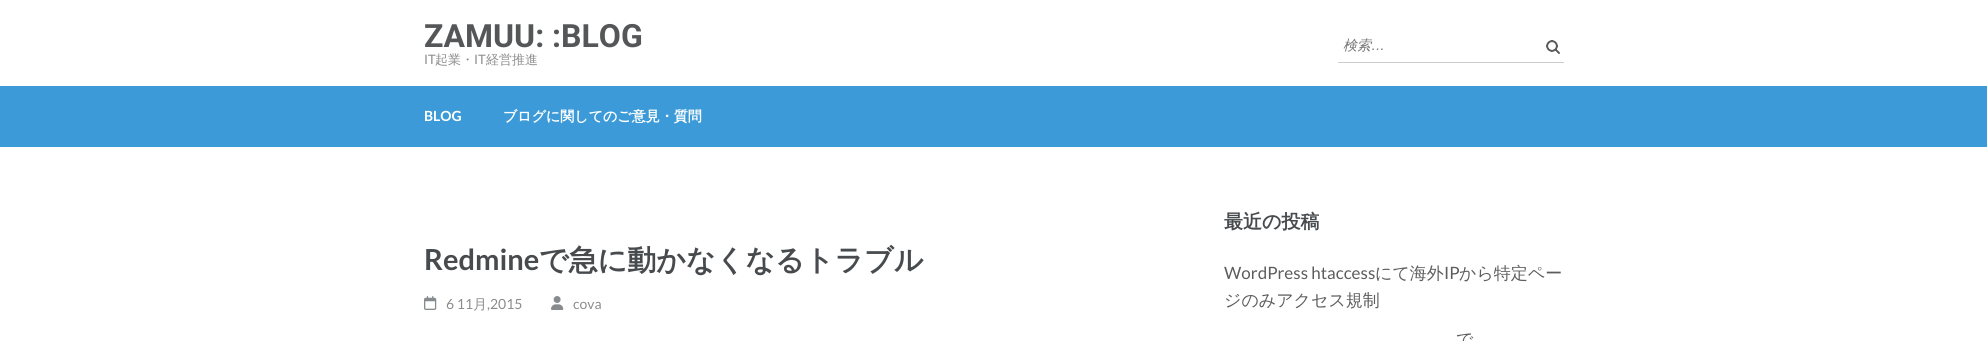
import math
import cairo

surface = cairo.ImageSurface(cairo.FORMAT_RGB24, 1987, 341)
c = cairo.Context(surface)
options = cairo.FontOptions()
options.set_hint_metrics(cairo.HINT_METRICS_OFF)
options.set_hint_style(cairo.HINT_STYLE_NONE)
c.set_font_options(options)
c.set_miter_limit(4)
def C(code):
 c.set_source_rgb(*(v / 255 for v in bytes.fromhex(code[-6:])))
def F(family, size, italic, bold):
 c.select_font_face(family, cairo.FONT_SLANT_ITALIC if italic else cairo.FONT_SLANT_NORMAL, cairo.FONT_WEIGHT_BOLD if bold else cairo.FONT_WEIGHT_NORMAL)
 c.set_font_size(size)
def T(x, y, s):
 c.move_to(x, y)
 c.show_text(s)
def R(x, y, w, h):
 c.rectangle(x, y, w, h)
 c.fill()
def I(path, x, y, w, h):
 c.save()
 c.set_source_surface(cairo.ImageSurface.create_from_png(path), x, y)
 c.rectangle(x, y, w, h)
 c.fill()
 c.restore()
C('ffffff')
c.paint()
F('Roboto',32,0,1)
C('555658')
T(424,47,'ZAMUU: :BLOG')
F('Lato',13,0,0)
C('8c8c8c')
T(424,64,'IT')
F('WenQuanYi Zen Hei Medium',13,0,0)
T(435,64,'起業・')
F('Lato',13,0,0)
T(474,64,'IT')
F('WenQuanYi Zen Hei Medium',13,0,0)
T(486,64,'経営推進')
C('cccccc')
R(1338,62,226,1)
F('WenQuanYi Zen Hei Medium',14,1,0)
C('757575')
T(1343,50,'検索')
F('Liberation Sans',14,1,0)
T(1371,50,'…')
I('1.png',1546,40,14,14)
C('3b9ad7')
R(0,86,1987,61)
F('Lato',14,0,1)
C('ffffff')
T(424,121,'BLOG')
F('WenQuanYi Zen Hei',14,0,1)
T(503,121,'ブログに関してのご意見・質問')
F('Lato',29,0,1)
C('474b4e')
T(424,270,'Redmine')
F('WenQuanYi Zen Hei',29,0,1)
T(539,270,'で急に動かなくなるトラブル')
I('2.png',424,296,13,14)
F('Lato',14,0,0)
C('8c8c8c')
T(446,309,'6 11')
F('WenQuanYi Zen Hei Medium',14,0,0)
T(473,309,'月')
F('Lato',14,0,0)
T(487,309,',2015')
I('3.png',551,296,13,14)
T(573,309,'cova')
F('WenQuanYi Zen Hei',19,0,1)
C('474b4e')
T(1224,228,'最近の投稿')
F('Lato',17,0,0)
C('5d5d5d')
T(1224,279,'WordPress htaccess')
F('WenQuanYi Zen Hei Medium',17,0,0)
T(1375,279,'にて海外')
F('Lato',17,0,0)
T(1444,279,'IP')
F('WenQuanYi Zen Hei Medium',17,0,0)
T(1459,279,'から特定ペー')
T(1224,306,'ジのみアクセス規制')
T(1456,345,'で')
surface.write_to_png('o.png')
